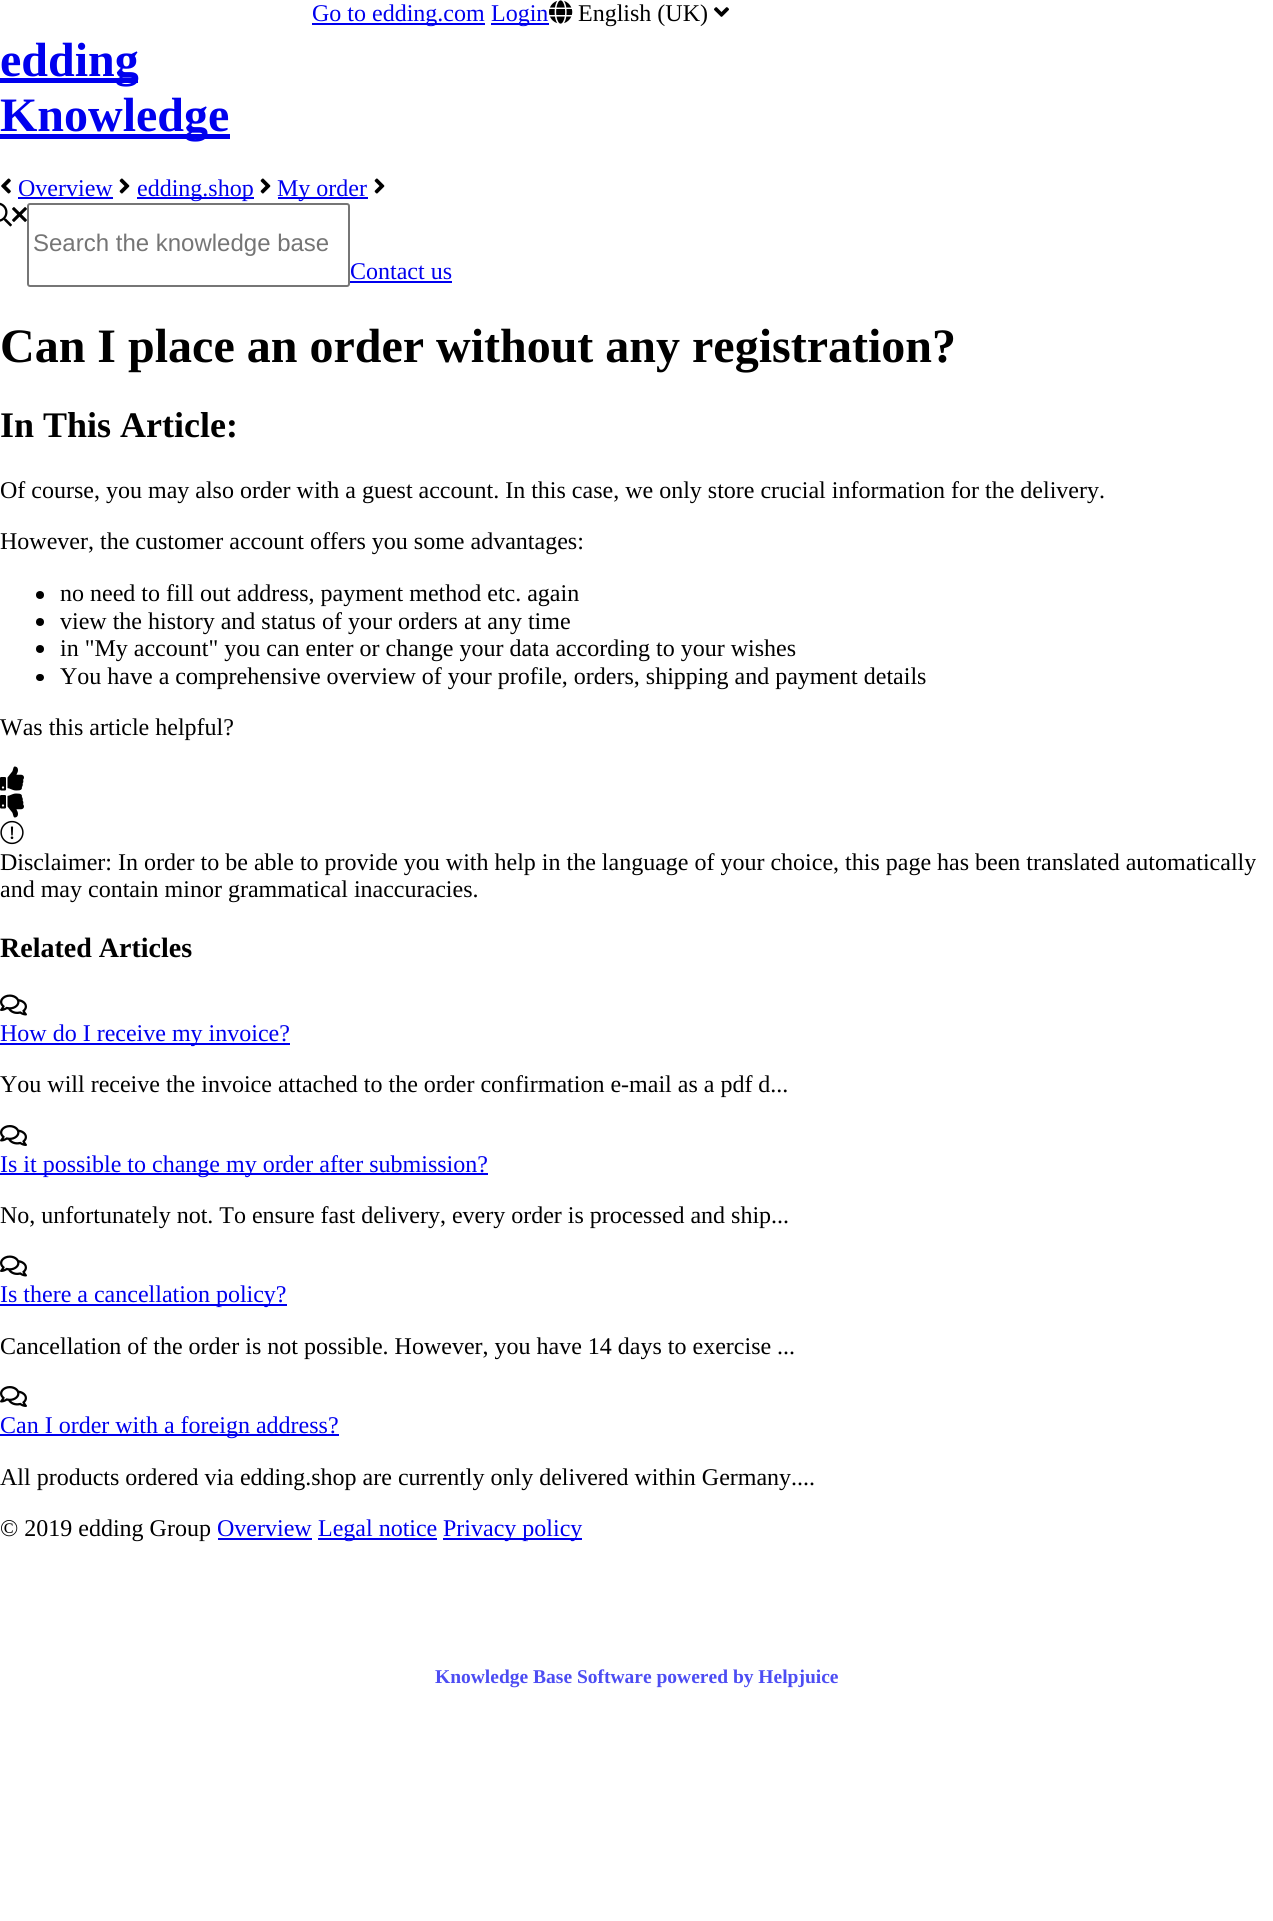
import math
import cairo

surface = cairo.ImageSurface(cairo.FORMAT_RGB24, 1273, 1921)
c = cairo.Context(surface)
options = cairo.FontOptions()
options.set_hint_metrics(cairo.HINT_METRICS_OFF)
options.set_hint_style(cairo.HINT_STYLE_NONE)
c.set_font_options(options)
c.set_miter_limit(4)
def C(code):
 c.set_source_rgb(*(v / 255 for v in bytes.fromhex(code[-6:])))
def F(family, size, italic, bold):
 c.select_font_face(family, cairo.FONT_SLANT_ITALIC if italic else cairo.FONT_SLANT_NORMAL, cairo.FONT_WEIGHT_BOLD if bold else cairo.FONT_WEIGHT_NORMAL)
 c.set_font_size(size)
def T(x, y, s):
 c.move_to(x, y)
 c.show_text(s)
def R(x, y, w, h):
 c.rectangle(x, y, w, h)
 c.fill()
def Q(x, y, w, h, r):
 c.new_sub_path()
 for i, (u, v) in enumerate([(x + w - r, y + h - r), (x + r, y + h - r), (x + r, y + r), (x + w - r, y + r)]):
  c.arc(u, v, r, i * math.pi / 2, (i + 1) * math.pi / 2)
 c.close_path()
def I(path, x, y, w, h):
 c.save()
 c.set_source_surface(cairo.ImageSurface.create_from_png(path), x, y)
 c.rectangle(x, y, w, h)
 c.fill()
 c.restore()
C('ffffff')
c.paint()
C('0000ee')
R(312,23,173,2)
F('Liberation Serif',24,0,0)
T(312,21,'Go to edding.com')
R(491,23,58,2)
T(491,21,'Login')
I('1.png',549,0,24,24)
C('000000')
T(578,21,'English (UK)')
I('2.png',714,7,15,10)
C('0000ee')
R(0,78,138,5)
F('Liberation Serif',48,0,1)
T(0,76,'edding')
R(0,134,230,5)
T(0,131,'Knowledge')
I('3.png',1,178,10,16)
F('Liberation Serif',24,0,0)
T(18,196,'Overview')
R(18,197,95,2)
I('4.png',119,178,11,16)
R(137,197,117,2)
T(137,196,'edding.shop')
I('4.png',260,178,11,16)
R(278,197,90,2)
T(277,196,'My order')
I('4.png',374,178,11,16)
I('5.png',0,202,12,25)
I('6.png',12,207,15,15)
Q(28,204,321,82,2)
C('767676')
c.stroke()
F('Liberation Sans',24,0,0)
C('757575')
T(33,251,'Search the knowledge base')
F('Liberation Serif',24,0,0)
C('0000ee')
T(350,279,'Contact us')
R(350,281,102,2)
F('Liberation Serif',48,0,1)
C('000000')
T(0,362,'Can I place an order without any registration?')
F('Liberation Serif',36,0,1)
T(0,437,'In This Article:')
F('Liberation Serif',24,0,0)
T(0,498,'Of course, you may also order with a guest account. In this case, we only store crucial information for the delivery.')
T(0,549,'However, the customer account offers you some advantages:')
c.new_path()
c.arc(40,595,4,0,2 * math.pi)
c.fill()
T(60,601,'no need to fill out address, payment method etc. again')
c.new_path()
c.arc(40,622,4,0,2 * math.pi)
c.fill()
T(60,629,'view the history and status of your orders at any time')
c.new_path()
c.arc(40,649,4,0,2 * math.pi)
c.fill()
T(60,656,'in "My account" you can enter or change your data according to your wishes')
Q(36,674,8,7,3.5)
c.fill()
T(60,684,'You have a comprehensive overview of your profile, orders, shipping and payment details')
T(0,735,'Was this article helpful?')
I('7.png',0,766,24,25)
I('8.png',0,793,24,25)
I('9.png',0,820,24,25)
T(0,870,'Disclaimer: In order to be able to provide you with help in the language of your choice, this page has been translated automatically')
T(0,897,'and may contain minor grammatical inaccuracies.')
F('Liberation Serif',28,0,1)
T(0,957,'Related Articles')
I('10.png',0,994,27,22)
C('0000ee')
R(0,1043,290,2)
F('Liberation Serif',24,0,0)
T(0,1041,'How do I receive my invoice?')
C('000000')
T(0,1092,'You will receive the invoice attached to the order confirmation e-mail as a pdf d...')
I('11.png',0,1125,27,21)
C('0000ee')
R(0,1173,488,2)
T(0,1172,'Is it possible to change my order after submission?')
C('000000')
T(0,1223,'No, unfortunately not. To ensure fast delivery, every order is processed and ship...')
I('10.png',0,1255,27,22)
C('0000ee')
R(0,1304,287,2)
T(0,1302,'Is there a cancellation policy?')
C('000000')
T(0,1354,'Cancellation of the order is not possible. However, you have 14 days to exercise ...')
I('11.png',0,1386,27,21)
C('0000ee')
R(0,1434,339,2)
T(0,1433,'Can I order with a foreign address?')
C('000000')
T(0,1485,'All products ordered via edding.shop are currently only delivered within Germany....')
T(0,1536,'© 2019 edding Group')
C('0000ee')
T(217,1536,'Overview')
R(218,1538,94,2)
R(318,1538,119,2)
T(318,1536,'Legal notice')
R(443,1538,139,2)
T(443,1536,'Privacy policy')
F('Liberation Serif',19.5,0,1)
C('4d4df3')
T(435,1683,'Knowledge Base Software powered by Helpjuice')
surface.write_to_png('o.png')
